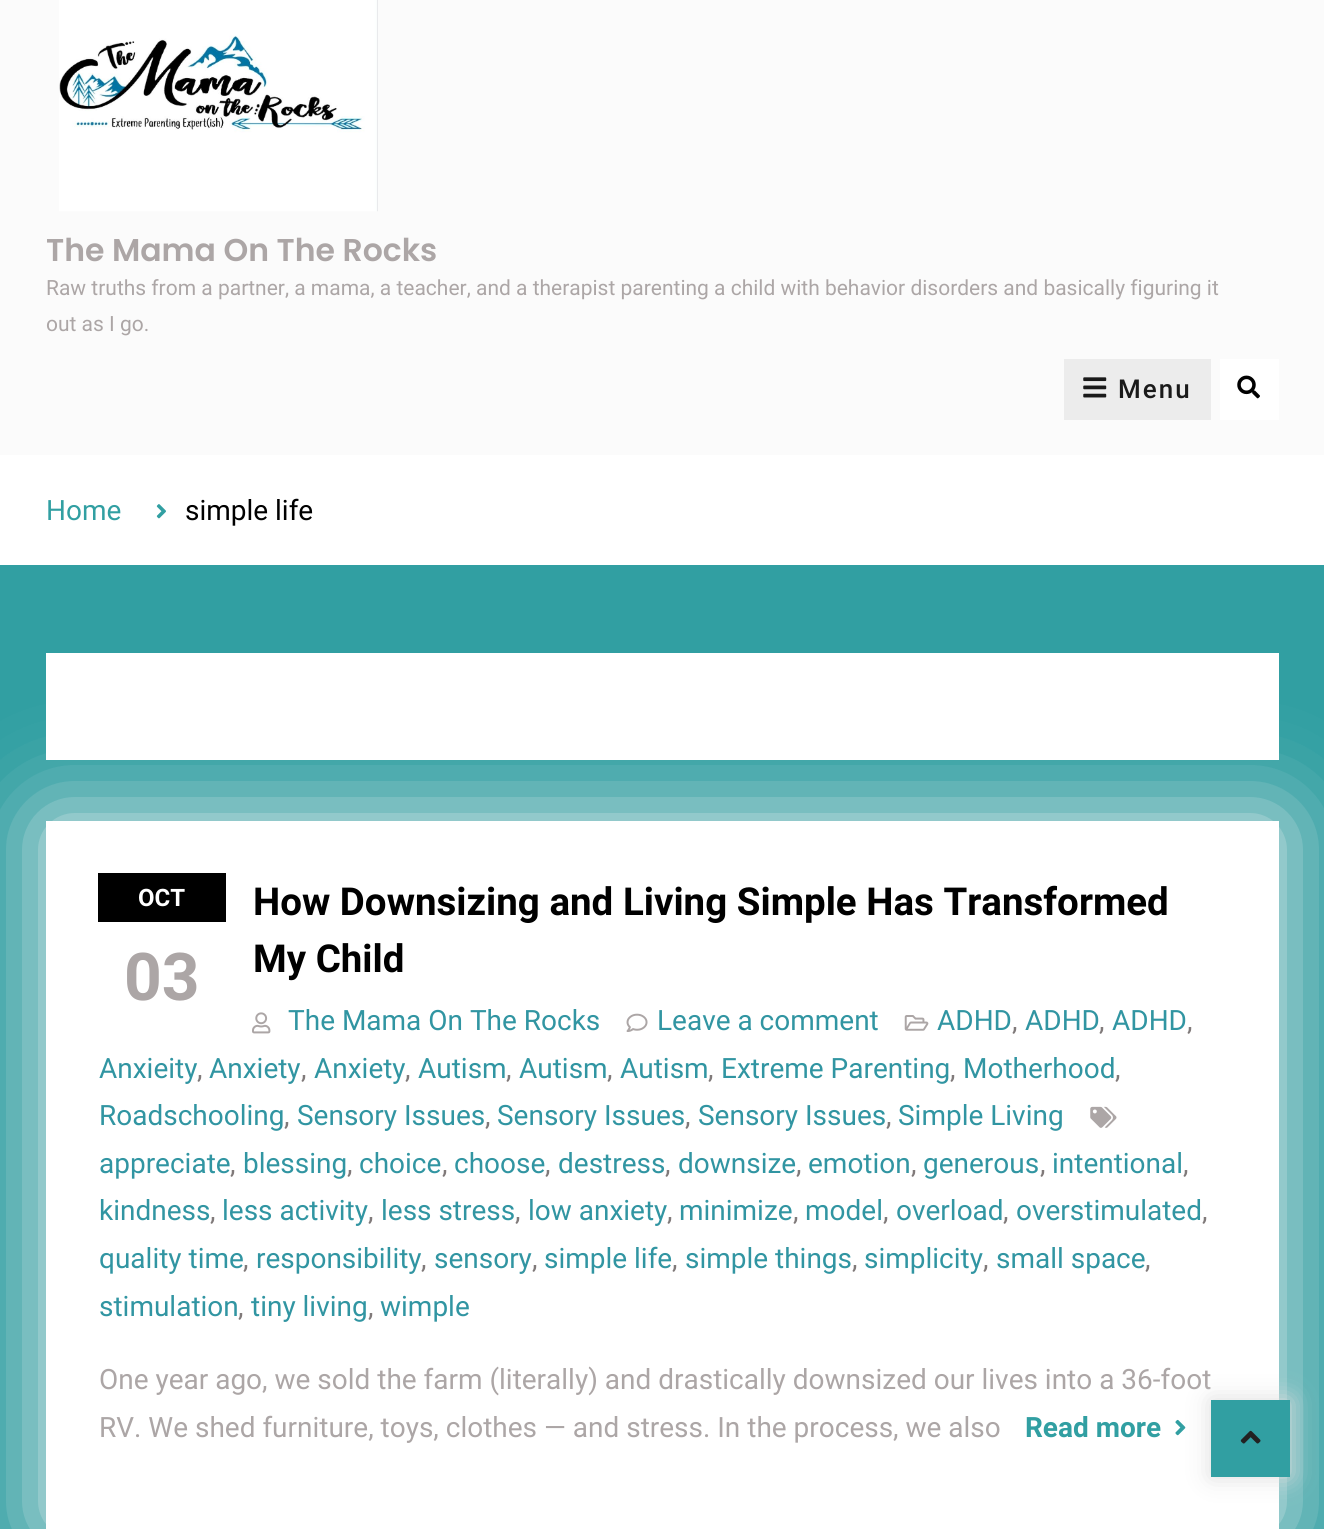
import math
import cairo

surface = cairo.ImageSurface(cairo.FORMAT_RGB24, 1324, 1529)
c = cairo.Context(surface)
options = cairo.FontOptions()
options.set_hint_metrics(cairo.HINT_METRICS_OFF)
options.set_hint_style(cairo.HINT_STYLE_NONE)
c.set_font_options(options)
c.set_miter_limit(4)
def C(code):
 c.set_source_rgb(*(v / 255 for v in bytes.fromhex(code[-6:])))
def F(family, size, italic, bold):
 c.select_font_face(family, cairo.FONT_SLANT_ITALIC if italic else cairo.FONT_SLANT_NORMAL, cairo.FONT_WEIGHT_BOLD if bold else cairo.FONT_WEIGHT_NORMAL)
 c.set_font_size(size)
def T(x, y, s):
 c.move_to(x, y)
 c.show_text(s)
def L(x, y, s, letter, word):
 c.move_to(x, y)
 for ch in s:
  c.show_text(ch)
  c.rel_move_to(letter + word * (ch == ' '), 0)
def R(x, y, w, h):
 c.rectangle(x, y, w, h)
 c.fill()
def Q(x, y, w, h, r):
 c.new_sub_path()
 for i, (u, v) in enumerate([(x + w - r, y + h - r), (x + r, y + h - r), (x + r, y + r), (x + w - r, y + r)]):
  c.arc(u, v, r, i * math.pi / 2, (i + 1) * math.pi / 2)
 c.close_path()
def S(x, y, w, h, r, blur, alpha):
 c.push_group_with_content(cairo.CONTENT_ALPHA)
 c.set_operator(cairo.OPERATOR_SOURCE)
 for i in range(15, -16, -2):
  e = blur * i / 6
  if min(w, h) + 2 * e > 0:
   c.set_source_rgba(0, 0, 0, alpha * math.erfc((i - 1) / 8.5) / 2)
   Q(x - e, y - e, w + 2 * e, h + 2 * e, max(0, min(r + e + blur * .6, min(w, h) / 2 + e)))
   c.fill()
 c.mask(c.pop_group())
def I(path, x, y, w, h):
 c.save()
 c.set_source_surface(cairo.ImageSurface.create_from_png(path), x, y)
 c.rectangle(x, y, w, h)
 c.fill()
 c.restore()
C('319fa2')
c.paint()
C('fbfbfb')
R(0,0,1324,455)
I('1.png',59,0,319,212)
F('Poppins SemiBold',31.5,0,0)
C('aca6a6')
T(46,261,'The Mama On The Rocks')
F('Roboto',21,0,0)
T(46,295,'Raw truths from a partner, a mama, a teacher, and a therapist parenting a child with behavior disorders and basically figuring it')
T(46,331,'out as I go.')
C('ececec')
R(1064,359,147,61)
I('2.png',1083,377,24,21)
F('Roboto Medium',26,0,0)
C('1a1a1a')
L(1118,398,'Menu',2,0)
C('ffffff')
R(1220,359,59,61)
I('3.png',1237,375,23,24)
R(0,455,1324,110)
F('Roboto',28,0,0)
C('319fa2')
T(46,520,'Home')
I('4.png',156,504,10,15)
C('000000')
T(185,520,'simple life')
C('f3f3f3')
S(46,821,1233,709,0,48,1)
C('ffffff')
R(46,653,1233,107)
R(46,821,1233,708)
C('000000')
R(98,873,128,49)
F('Roboto',24,0,1)
C('ffffff')
T(138,906,'OCT')
F('Roboto',66,0,1)
C('aca6a6')
T(124,1000,'03')
F('Roboto',38.5,0,1)
C('000000')
T(253,915,'How Downsizing and Living Simple Has Transformed')
T(253,972,'My Child')
I('5.png',252,1012,19,22)
F('Roboto',28,0,0)
C('3195a2')
T(288,1030,'The Mama On The Rocks')
I('6.png',904,1015,25,16)
T(937,1030,'ADHD')
C('807a7a')
T(1012,1030,',')
C('3195a2')
T(1025,1030,'ADHD')
C('807a7a')
T(1099,1030,',')
C('3195a2')
T(1112,1030,'ADHD')
C('807a7a')
T(1187,1030,',')
C('3195a2')
T(99,1078,'Anxieity')
C('807a7a')
T(197,1078,',')
C('3195a2')
T(209,1078,'Anxiety')
C('807a7a')
T(301,1078,',')
C('3195a2')
T(314,1078,'Anxiety')
C('807a7a')
T(405,1078,',')
C('3195a2')
T(418,1078,'Autism')
C('807a7a')
T(506,1078,',')
C('3195a2')
T(519,1078,'Autism')
C('807a7a')
T(607,1078,',')
C('3195a2')
T(620,1078,'Autism')
C('807a7a')
T(708,1078,',')
C('3195a2')
T(721,1078,'Extreme Parenting')
C('807a7a')
T(950,1078,',')
C('3195a2')
T(963,1078,'Motherhood')
C('807a7a')
T(1115,1078,',')
C('3195a2')
T(99,1125,'Roadschooling')
C('807a7a')
T(284,1125,',')
C('3195a2')
T(297,1125,'Sensory Issues')
C('807a7a')
T(485,1125,',')
C('3195a2')
T(497,1125,'Sensory Issues')
C('807a7a')
T(685,1125,',')
C('3195a2')
T(698,1125,'Sensory Issues')
C('807a7a')
T(886,1125,',')
C('3195a2')
T(898,1125,'Simple Living')
I('7.png',626,1013,22,19)
T(657,1030,'Leave a comment')
I('8.png',1090,1106,27,22)
T(99,1173,'appreciate')
C('807a7a')
T(230,1173,',')
C('3195a2')
T(243,1173,'blessing')
C('807a7a')
T(347,1173,',')
C('3195a2')
T(359,1173,'choice')
C('807a7a')
T(442,1173,',')
C('3195a2')
T(454,1173,'choose')
C('807a7a')
T(545,1173,',')
C('3195a2')
T(558,1173,'destress')
C('807a7a')
T(665,1173,',')
C('3195a2')
T(678,1173,'downsize')
C('807a7a')
T(796,1173,',')
C('3195a2')
T(808,1173,'emotion')
C('807a7a')
T(911,1173,',')
C('3195a2')
T(923,1173,'generous')
C('807a7a')
T(1040,1173,',')
C('3195a2')
T(1052,1173,'intentional')
C('807a7a')
T(1183,1173,',')
C('3195a2')
T(99,1220,'kindness')
C('807a7a')
T(210,1220,',')
C('3195a2')
T(222,1220,'less activity')
C('807a7a')
T(368,1220,',')
C('3195a2')
T(381,1220,'less stress')
C('807a7a')
T(515,1220,',')
C('3195a2')
T(528,1220,'low anxiety')
C('807a7a')
T(667,1220,',')
C('3195a2')
T(679,1220,'minimize')
C('807a7a')
T(793,1220,',')
C('3195a2')
T(805,1220,'model')
C('807a7a')
T(883,1220,',')
C('3195a2')
T(896,1220,'overload')
C('807a7a')
T(1003,1220,',')
C('3195a2')
T(1016,1220,'overstimulated')
C('807a7a')
T(1202,1220,',')
C('3195a2')
T(99,1268,'quality time')
C('807a7a')
T(243,1268,',')
C('3195a2')
T(256,1268,'responsibility')
C('807a7a')
T(421,1268,',')
C('3195a2')
T(434,1268,'sensory')
C('807a7a')
T(532,1268,',')
C('3195a2')
T(544,1268,'simple life')
C('807a7a')
T(672,1268,',')
C('3195a2')
T(685,1268,'simple things')
C('807a7a')
T(852,1268,',')
C('3195a2')
T(864,1268,'simplicity')
C('807a7a')
T(983,1268,',')
C('3195a2')
T(996,1268,'small space')
C('807a7a')
T(1145,1268,',')
C('3195a2')
T(99,1316,'stimulation')
C('807a7a')
T(238,1316,',')
C('3195a2')
T(251,1316,'tiny living')
C('807a7a')
T(368,1316,',')
C('3195a2')
T(380,1316,'wimple')
C('aca6a6')
T(99,1389,'One year ago, we sold the farm (literally) and drastically downsized our lives into a 36-foot')
T(99,1437,'RV. We shed furniture, toys, clothes — and stress. In the process, we also')
F('Roboto',28,0,1)
C('319fa2')
T(1025,1437,'Read more')
I('9.png',1175,1419,11,17)
C('dddddd')
S(1211,1400,79,77,0,12,1)
C('319fa2')
R(1211,1400,79,77)
I('10.png',1240,1430,21,14)
surface.write_to_png('o.png')
